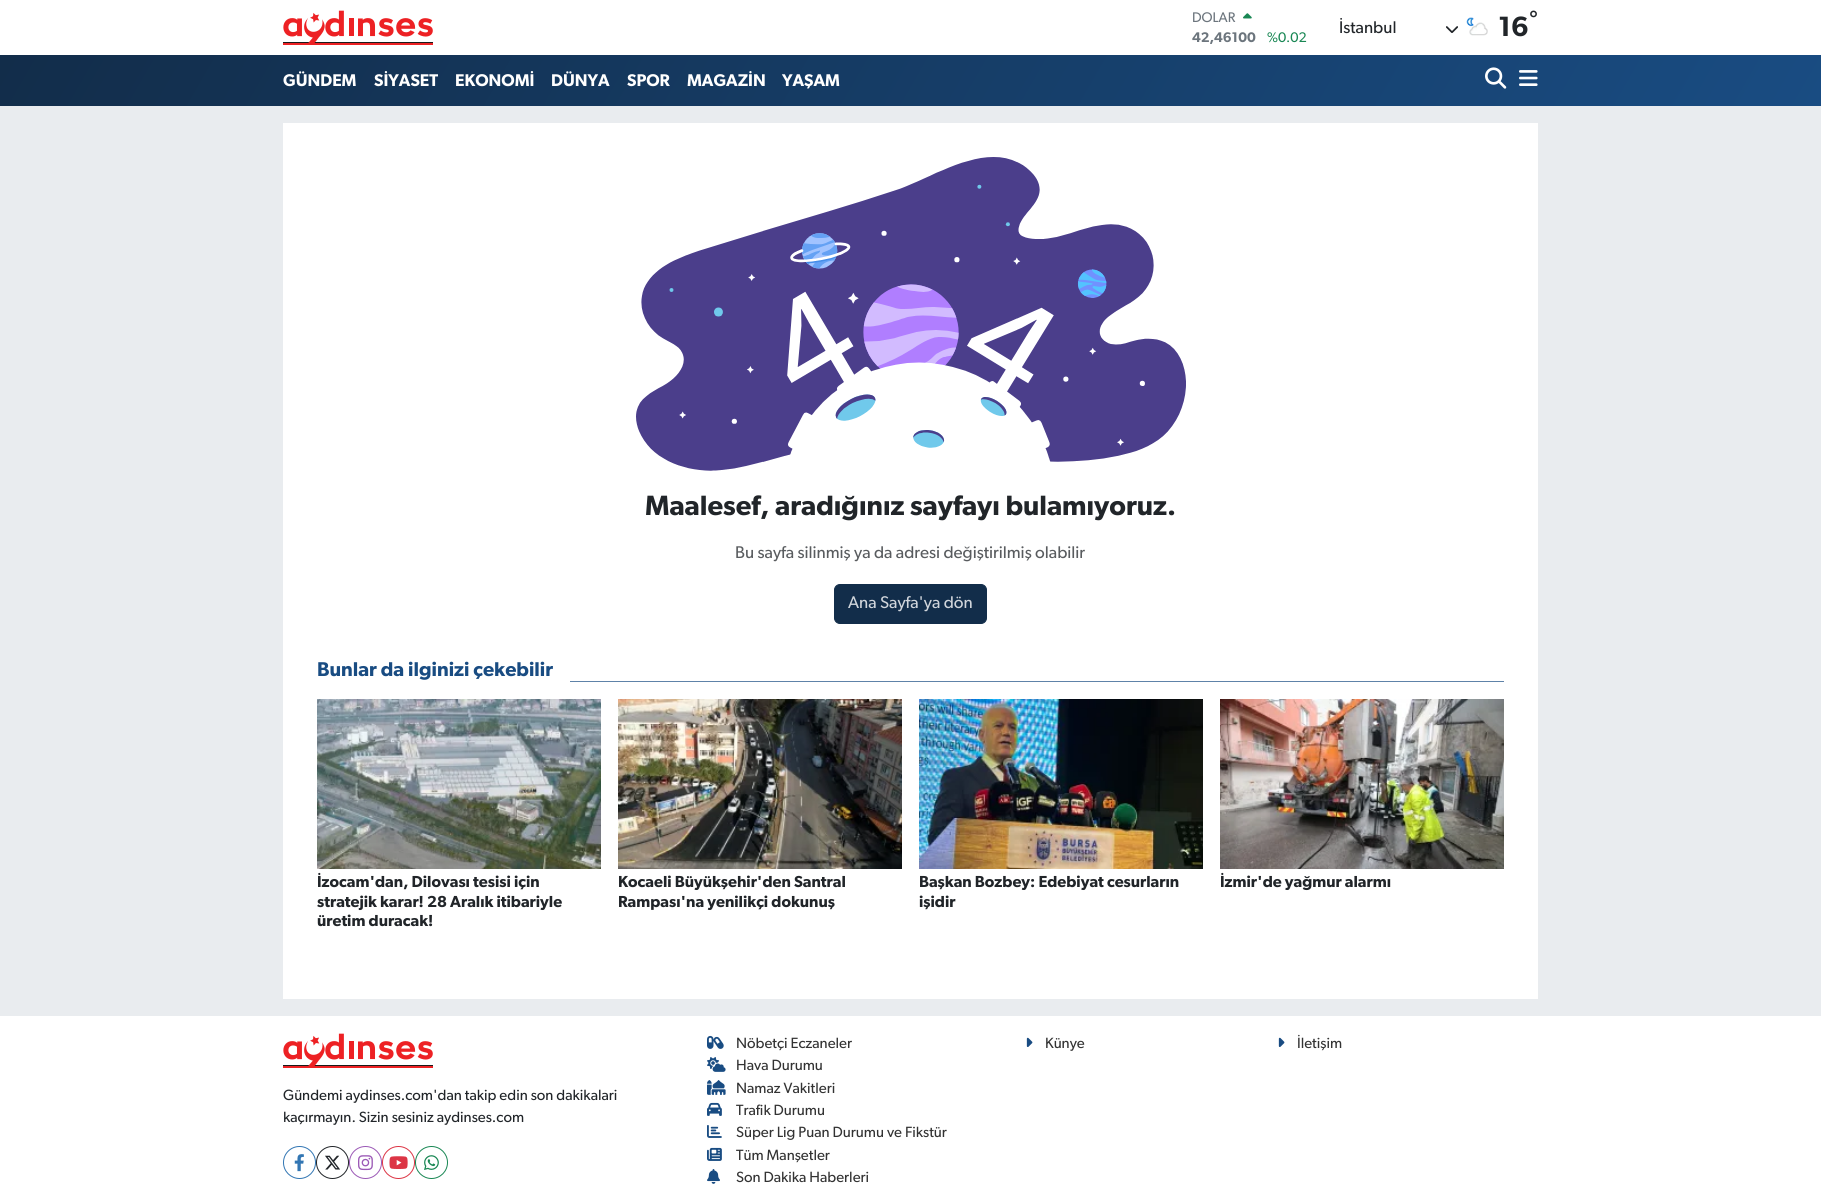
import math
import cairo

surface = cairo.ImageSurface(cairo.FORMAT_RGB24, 1821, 1189)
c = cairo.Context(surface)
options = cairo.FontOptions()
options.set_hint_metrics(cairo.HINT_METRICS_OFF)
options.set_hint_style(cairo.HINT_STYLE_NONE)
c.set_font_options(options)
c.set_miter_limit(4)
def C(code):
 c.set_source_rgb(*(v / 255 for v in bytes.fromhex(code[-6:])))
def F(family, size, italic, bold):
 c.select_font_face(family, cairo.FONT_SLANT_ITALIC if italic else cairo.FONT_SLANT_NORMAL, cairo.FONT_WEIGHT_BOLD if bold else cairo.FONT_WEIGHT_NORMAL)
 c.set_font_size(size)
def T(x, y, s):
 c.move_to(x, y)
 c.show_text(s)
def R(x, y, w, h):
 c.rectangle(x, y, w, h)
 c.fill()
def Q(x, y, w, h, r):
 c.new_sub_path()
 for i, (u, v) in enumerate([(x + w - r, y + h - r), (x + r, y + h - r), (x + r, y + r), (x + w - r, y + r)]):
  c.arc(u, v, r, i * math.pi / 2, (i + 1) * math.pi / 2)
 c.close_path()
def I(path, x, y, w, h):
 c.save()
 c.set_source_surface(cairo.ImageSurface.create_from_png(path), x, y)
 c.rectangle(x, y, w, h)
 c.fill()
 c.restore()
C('e9ecef')
c.paint()
C('ffffff')
R(0,0,1821,55)
I('1.png',283,10,150,35)
F('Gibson',14,0,0)
C('6c757d')
T(1192,22,'DOLAR')
I('2.png',1243,13,9,6)
F('Gibson SemiBold',14,0,0)
T(1192,42,'42,46100')
F('Gibson',14,0,0)
C('198754')
T(1267,42,'%0.02')
F('Gibson',17,0,0)
C('212529')
T(1339,33,'İstanbul')
I('3.png',1446,26,12,7)
I('4.png',1466,17,22,19)
F('Gibson SemiBold',21,0,0)
T(1529,26,'°')
F('Gibson SemiBold',28,0,0)
T(1498,36,'16')
gradient = cairo.LinearGradient(217,-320,1604,481)
gradient.add_color_stop_rgba(0,0.071,0.176,0.29,1)
gradient.add_color_stop_rgba(1,0.098,0.298,0.51,1)
c.set_source(gradient)
R(0,55,1821,51)
F('Gibson SemiBold',17,0,0)
C('ffffff')
T(283,86,'GÜNDEM')
T(374,86,'SİYASET')
T(455,86,'EKONOMİ')
T(551,86,'DÜNYA')
T(627,86,'SPOR')
T(687,86,'MAGAZİN')
T(782,86,'YAŞAM')
I('5.png',1485,67,22,22)
I('6.png',1519,70,19,16)
R(283,123,1255,876)
I('7.png',636,157,550,314)
F('Gibson SemiBold',28,0,0)
C('212529')
T(645,515,'Maalesef, aradığınız sayfayı bulamıyoruz.')
F('Gibson',17,0,0)
C('595c5f')
T(735,558,'Bu sayfa silinmiş ya da adresi değiştirilmiş olabilir')
C('122d4a')
Q(834.5,584.5,152,39,5.5)
c.fill_preserve()
c.set_line_width(1)
c.stroke()
C('d0d5db')
T(848,608,'Ana Sayfa\'ya dön')
F('Gibson SemiBold',20,0,0)
C('194c82')
T(317,676,'Bunlar da ilginizi çekebilir')
C('5e82a8')
R(570,681,934,1)
I('8.png',317,699,284,170)
F('Gibson SemiBold',16,0,0)
C('212529')
T(317,887,'İzocam\'dan, Dilovası tesisi için')
T(317,907,'stratejik karar! 28 Aralık itibariyle')
T(317,926,'üretim duracak!')
I('9.png',618,699,284,170)
T(618,887,'Kocaeli Büyükşehir\'den Santral')
T(618,907,'Rampası\'na yenilikçi dokunuş')
I('10.png',919,699,284,170)
T(919,887,'Başkan Bozbey: Edebiyat cesurların')
T(919,907,'işidir')
I('11.png',1220,699,284,170)
T(1220,887,'İzmir\'de yağmur alarmı')
C('ffffff')
R(0,1016,1821,173)
I('1.png',283,1033,150,35)
F('Gibson',14.9,0,0)
C('212529')
T(283,1100,'Gündemi aydinses.com\'dan takip edin son dakikalari')
T(283,1122,'kaçırmayın. Sizin sesiniz aydinses.com')
c.new_path()
c.arc(299.5,1162.5,16,0,2 * math.pi)
C('3276b3')
c.stroke()
I('12.png',294,1154,10,18)
c.arc(332.5,1162.5,16,0,2 * math.pi)
C('212529')
c.stroke()
I('13.png',325,1155,15,15)
c.arc(365.5,1162.5,16,0,2 * math.pi)
C('9b59b6')
c.stroke()
I('14.png',358,1155,15,16)
c.arc(398.5,1162.5,16,0,2 * math.pi)
C('dc3545')
c.stroke()
I('15.png',389,1156,19,13)
c.arc(431.5,1162.5,16,0,2 * math.pi)
C('198754')
c.stroke()
I('16.png',424,1155,15,15)
I('17.png',707,1035,17,14)
C('333333')
T(736,1048,'Nöbetçi Eczaneler')
I('18.png',707,1057,19,15)
T(736,1070,'Hava Durumu')
I('19.png',707,1080,19,15)
T(736,1093,'Namaz Vakitleri')
I('20.png',707,1102,15,14)
T(736,1115,'Trafik Durumu')
I('21.png',707,1125,15,13)
T(736,1137,'Süper Lig Puan Durumu ve Fikstür')
I('22.png',707,1147,15,14)
T(736,1160,'Tüm Manşetler')
I('23.png',707,1169,13,15)
T(736,1182,'Son Dakika Haberleri')
I('24.png',1026,1037,7,10)
T(1045,1048,'Künye')
I('24.png',1278,1037,7,10)
T(1297,1048,'İletişim')
surface.write_to_png('o.png')
